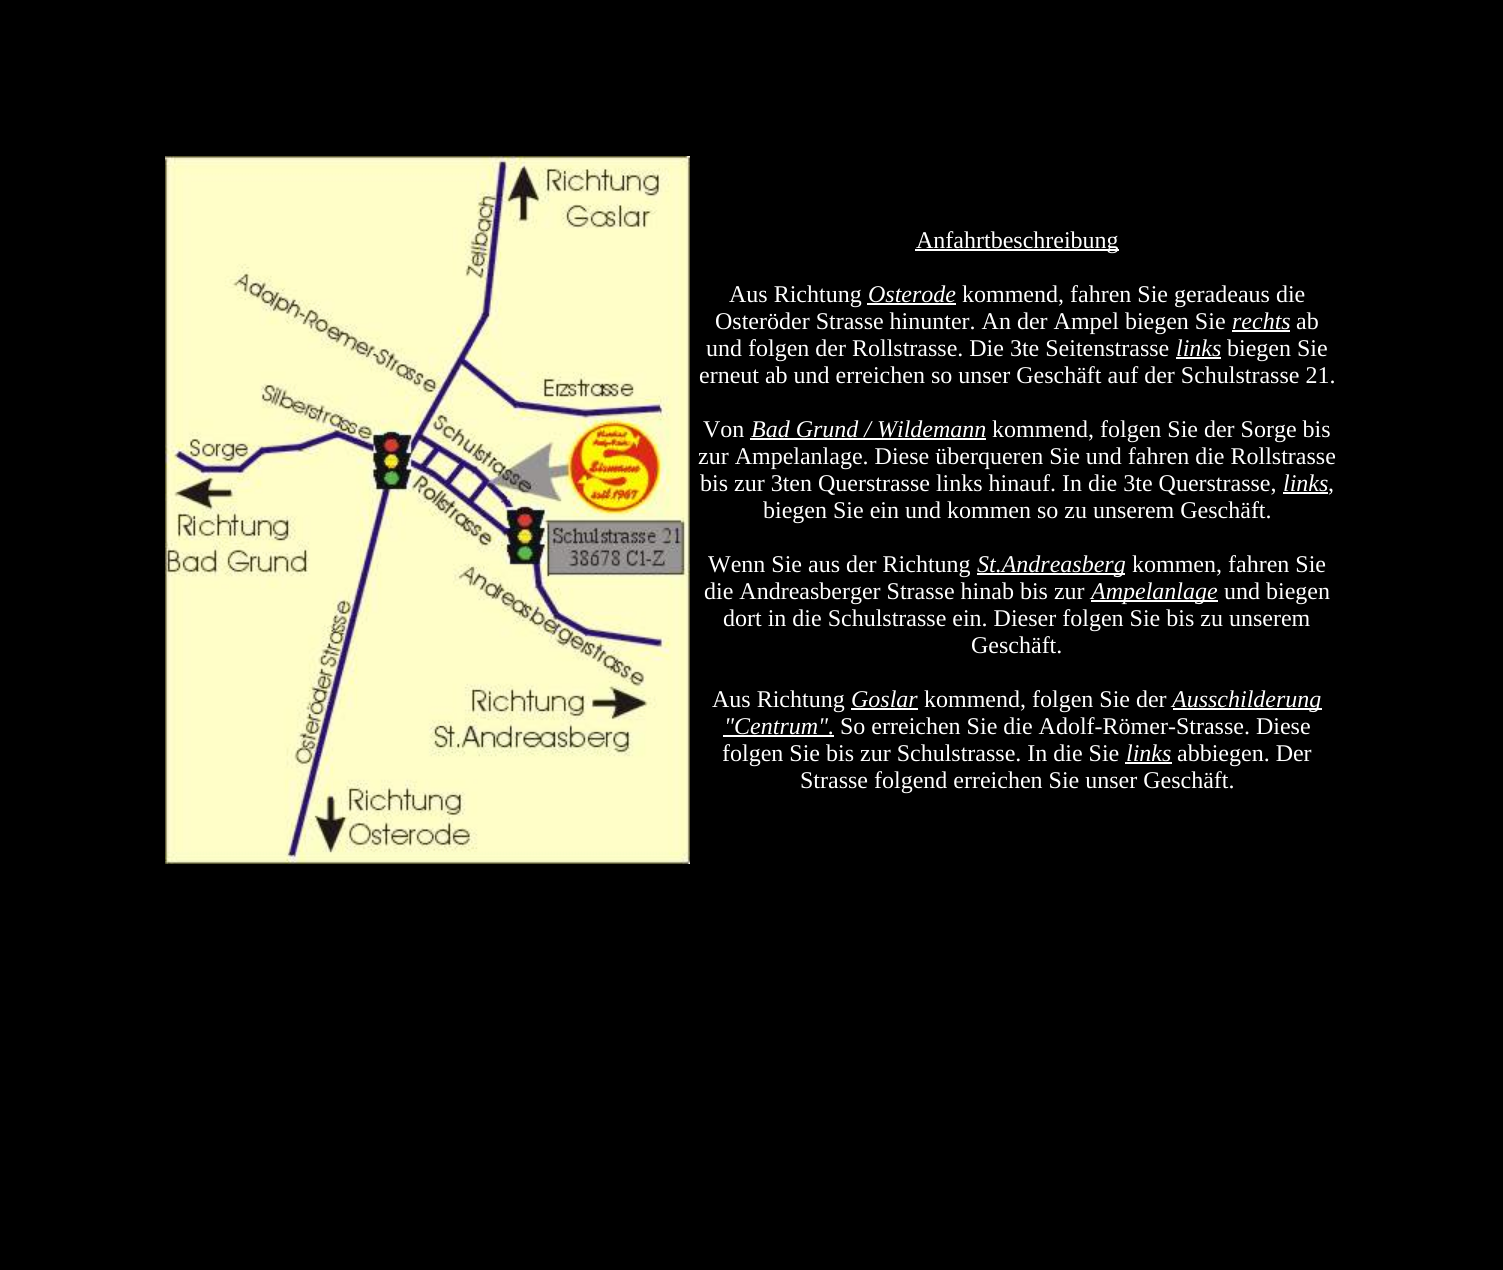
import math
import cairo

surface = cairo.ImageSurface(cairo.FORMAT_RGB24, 1503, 1270)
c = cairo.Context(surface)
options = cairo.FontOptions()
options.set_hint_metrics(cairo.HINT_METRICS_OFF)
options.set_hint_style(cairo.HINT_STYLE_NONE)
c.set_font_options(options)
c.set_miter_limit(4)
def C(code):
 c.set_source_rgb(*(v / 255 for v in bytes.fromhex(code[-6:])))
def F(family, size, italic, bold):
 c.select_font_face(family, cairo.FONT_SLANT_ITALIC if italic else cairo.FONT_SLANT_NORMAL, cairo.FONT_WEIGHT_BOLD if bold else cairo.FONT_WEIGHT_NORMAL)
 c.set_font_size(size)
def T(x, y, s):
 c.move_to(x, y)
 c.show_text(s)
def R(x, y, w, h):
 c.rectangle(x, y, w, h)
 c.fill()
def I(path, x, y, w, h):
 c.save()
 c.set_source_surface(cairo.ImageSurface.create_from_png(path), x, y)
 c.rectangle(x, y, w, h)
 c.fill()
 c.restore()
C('000000')
c.paint()
I('1.png',165,156,525,708)
C('ffffff')
R(915,249,204,2)
F('Liberation Serif',24,0,0)
T(916,248,'Anfahrtbeschreibung')
T(729,302,'Aus Richtung')
R(867,303,89,2)
F('Liberation Serif',24,1,0)
T(868,302,'Osterode')
F('Liberation Serif',24,0,0)
T(962,302,'kommend, fahren Sie geradeaus die')
T(715,329,'Osteröder Strasse hinunter. An der Ampel biegen Sie')
F('Liberation Serif',24,1,0)
T(1232,329,'rechts')
R(1232,330,58,2)
F('Liberation Serif',24,0,0)
T(1296,329,'ab')
T(706,356,'und folgen der Rollstrasse. Die 3te Seitenstrasse')
F('Liberation Serif',24,1,0)
T(1176,356,'links')
R(1176,357,45,2)
F('Liberation Serif',24,0,0)
T(1227,356,'biegen Sie')
T(699,383,'erneut ab und erreichen so unser Geschäft auf der Schulstrasse 21.')
T(703,437,'Von')
F('Liberation Serif',24,1,0)
T(751,437,'Bad Grund / Wildemann')
R(750,438,236,2)
F('Liberation Serif',24,0,0)
T(992,437,'kommend, folgen Sie der Sorge bis')
T(698,464,'zur Ampelanlage. Diese überqueren Sie und fahren die Rollstrasse')
T(700,491,'bis zur 3ten Querstrasse links hinauf. In die 3te Querstrasse,')
F('Liberation Serif',24,1,0)
T(1283,491,'links')
F('Liberation Serif',24,0,0)
T(1328,491,',')
R(1283,492,45,2)
T(763,518,'biegen Sie ein und kommen so zu unserem Geschäft.')
T(708,572,'Wenn Sie aus der Richtung')
R(977,573,148,2)
F('Liberation Serif',24,1,0)
T(977,572,'St.Andreasberg')
F('Liberation Serif',24,0,0)
T(1132,572,'kommen, fahren Sie')
T(704,599,'die Andreasberger Strasse hinab bis zur')
R(1091,600,127,2)
F('Liberation Serif',24,1,0)
T(1091,599,'Ampelanlage')
F('Liberation Serif',24,0,0)
T(1224,599,'und biegen')
T(723,626,'dort in die Schulstrasse ein. Dieser folgen Sie bis zu unserem')
T(971,653,'Geschäft.')
T(712,707,'Aus Richtung')
F('Liberation Serif',24,1,0)
T(851,707,'Goslar')
R(851,708,67,2)
F('Liberation Serif',24,0,0)
T(924,707,'kommend, folgen Sie der')
R(1173,708,149,2)
F('Liberation Serif',24,1,0)
T(1172,707,'Ausschilderung')
T(724,734,'"Centrum".')
R(723,735,111,2)
F('Liberation Serif',24,0,0)
T(840,734,'So erreichen Sie die Adolf-Römer-Strasse. Diese')
T(722,761,'folgen Sie bis zur Schulstrasse. In die Sie')
F('Liberation Serif',24,1,0)
T(1126,761,'links')
R(1125,762,47,2)
F('Liberation Serif',24,0,0)
T(1177,761,'abbiegen. Der')
T(800,788,'Strasse folgend erreichen Sie unser Geschäft.')
surface.write_to_png('o.png')
